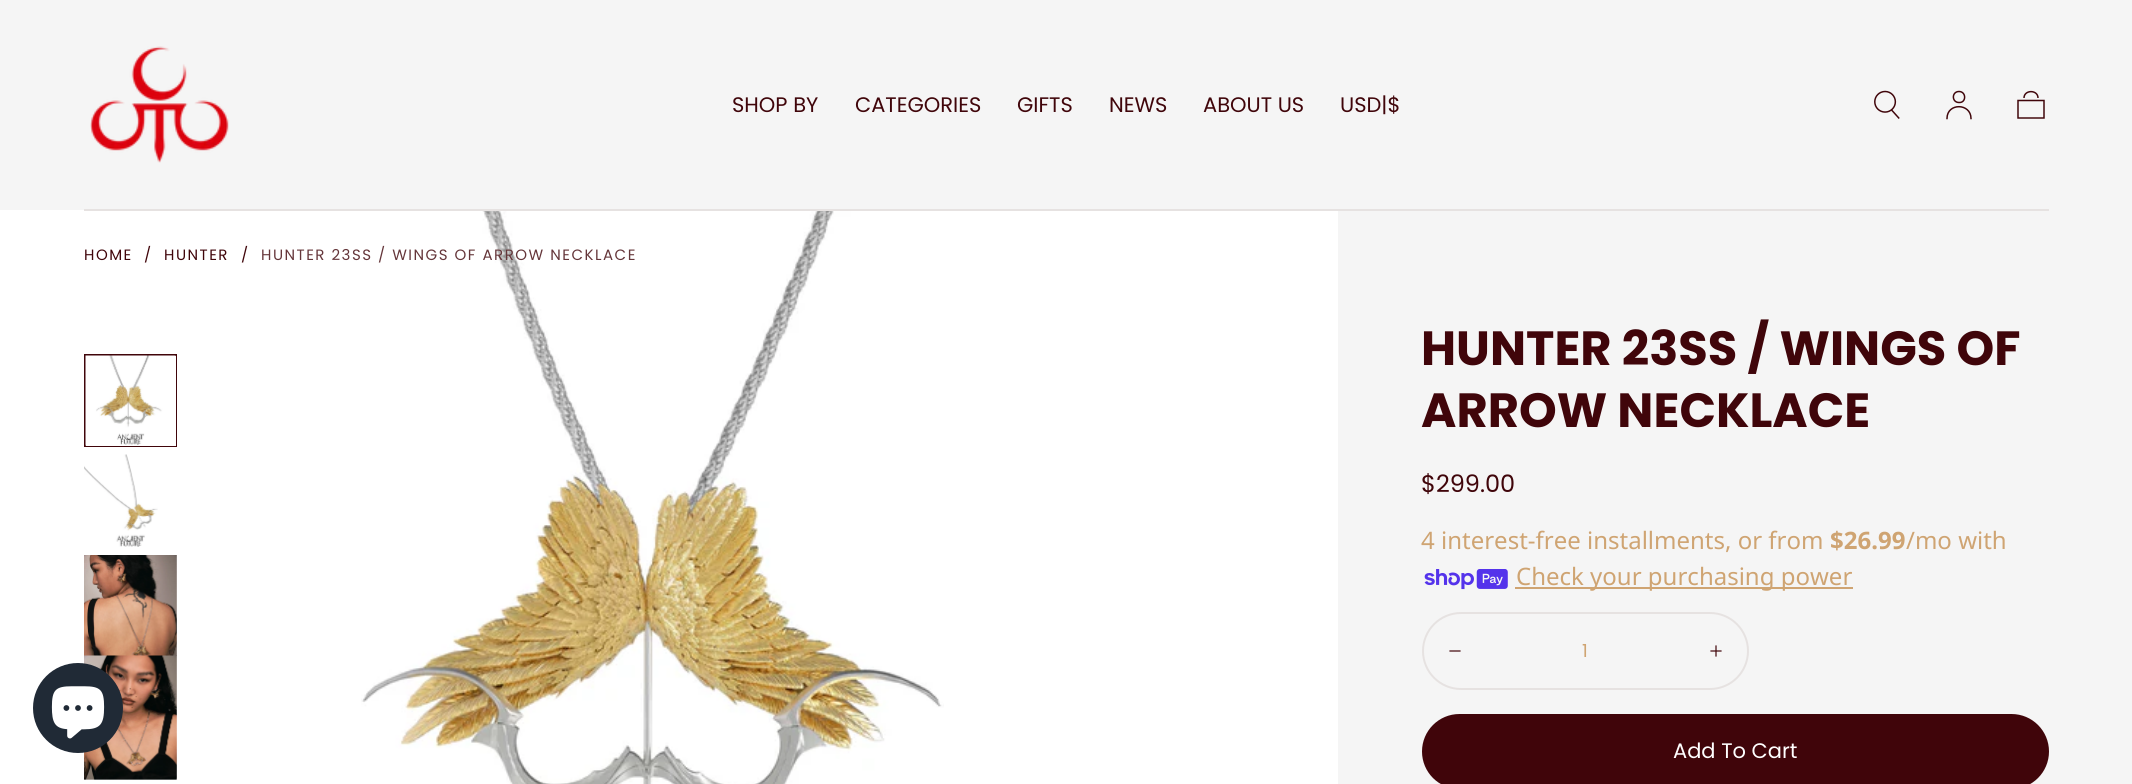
import math
import cairo

surface = cairo.ImageSurface(cairo.FORMAT_RGB24, 2132, 784)
c = cairo.Context(surface)
options = cairo.FontOptions()
options.set_hint_metrics(cairo.HINT_METRICS_OFF)
options.set_hint_style(cairo.HINT_STYLE_NONE)
c.set_font_options(options)
c.set_miter_limit(4)
def C(code):
 c.set_source_rgb(*(v / 255 for v in bytes.fromhex(code[-6:])))
def F(family, size, italic, bold):
 c.select_font_face(family, cairo.FONT_SLANT_ITALIC if italic else cairo.FONT_SLANT_NORMAL, cairo.FONT_WEIGHT_BOLD if bold else cairo.FONT_WEIGHT_NORMAL)
 c.set_font_size(size)
def T(x, y, s):
 c.move_to(x, y)
 c.show_text(s)
def L(x, y, s, letter, word):
 c.move_to(x, y)
 for ch in s:
  c.show_text(ch)
  c.rel_move_to(letter + word * (ch == ' '), 0)
def R(x, y, w, h):
 c.rectangle(x, y, w, h)
 c.fill()
def Q(x, y, w, h, r):
 c.new_sub_path()
 for i, (u, v) in enumerate([(x + w - r, y + h - r), (x + r, y + h - r), (x + r, y + r), (x + w - r, y + r)]):
  c.arc(u, v, r, i * math.pi / 2, (i + 1) * math.pi / 2)
 c.close_path()
def I(path, x, y, w, h):
 c.save()
 c.set_source_surface(cairo.ImageSurface.create_from_png(path), x, y)
 c.rectangle(x, y, w, h)
 c.fill()
 c.restore()
C('f5f5f5')
c.paint()
I('1.png',90,46,139,117)
F('Poppins',21,0,0)
C('40050a')
T(732,112,'SHOP BY')
T(855,112,'CATEGORIES')
T(1017,112,'GIFTS')
T(1109,112,'NEWS')
T(1203,112,'ABOUT US')
T(1340,112,'USD|$')
I('2.png',1874,90,26,29)
c.new_path()
c.move_to(1947,118.5)
c.curve_to(1947,102.5,1971,103,1971,118.5)
c.move_to(1959,102.5)
c.curve_to(1966.5,103,1966.5,91.5,1959,91.5)
c.curve_to(1951.5,91.5,1951.5,102.5,1959,102.5)
c.close_path()
c.set_line_width(1.5)
c.set_line_cap(cairo.LINE_CAP_SQUARE)
c.stroke()
c.new_path()
c.move_to(2044,118)
c.line_to(2018,118)
c.line_to(2018,100.5)
c.line_to(2044,100.5)
c.close_path()
c.move_to(2038,98)
c.curve_to(2038,89.5,2024,89.5,2024,98)
c.set_line_cap(cairo.LINE_CAP_BUTT)
c.stroke()
C('ffffff')
R(0,210,1338,574)
C('e6e2e1')
R(84,209,1965,2)
I('6.png',84,555,93,101)
I('7.png',84,655,93,125)
C('202a36')
c.arc(78,708,45,0,2 * math.pi)
c.fill()
I('3.png',51,686,54,53)
c.rectangle(85,355,91,91)
C('40050a')
c.set_line_width(2)
c.stroke()
C('ffffff')
R(86,356,90,90)
I('4.png',85,355,91,91)
I('5.png',84,454,74,93)
I('8.png',361,211,583,573)
F('Poppins',15,0,0)
C('40050a')
L(84,260,'HOME',1.5,0)
L(144,260,'/',1.5,0)
L(164,260,'HUNTER',1.5,0)
L(241,260,'/',1.5,0)
C('65363a')
L(261,260,'HUNTER 23SS / WINGS OF ARROW NECKLACE',1.5,0)
F('Poppins',48,0,1)
C('40050a')
T(1421,365,'HUNTER 23SS / WINGS OF')
T(1421,427,'ARROW NECKLACE')
F('Poppins',24,0,0)
T(1421,492,'$299.00')
F('Noto Sans',24,0,0)
C('cfa472')
T(1421,549,'4 interest-free installments, or from')
F('Noto Sans',24,0,1)
T(1830,549,'$26.99')
F('Noto Sans',24,0,0)
T(1906,549,'/mo with')
I('9.png',1424,569,84,21)
R(1515,587,338,2)
T(1516,585,'Check your purchasing power')
Q(1423,613,325,76,38)
C('e6e2e1')
c.stroke()
c.new_path()
c.move_to(1450,651)
c.line_to(1460,651)
C('40050a')
c.set_line_width(1.2)
c.set_line_cap(cairo.LINE_CAP_SQUARE)
c.stroke()
F('Poppins',18,0,0)
C('cfa472')
T(1582,657,'1')
I('10.png',1710,645,12,12)
C('40050a')
Q(1423,715,625,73,36.5)
c.fill_preserve()
c.set_line_width(2)
c.set_line_cap(cairo.LINE_CAP_BUTT)
c.stroke()
F('Poppins',21,0,0)
C('ffffff')
T(1673,758,'Add To Cart')
surface.write_to_png('o.png')
